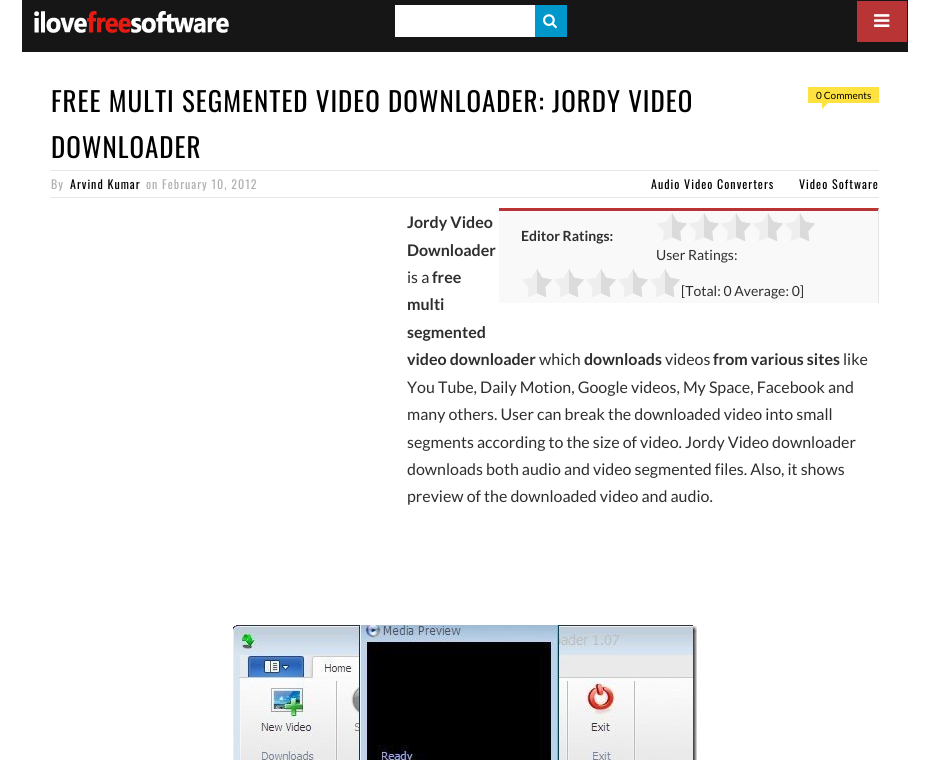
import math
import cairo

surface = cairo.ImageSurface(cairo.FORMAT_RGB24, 930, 760)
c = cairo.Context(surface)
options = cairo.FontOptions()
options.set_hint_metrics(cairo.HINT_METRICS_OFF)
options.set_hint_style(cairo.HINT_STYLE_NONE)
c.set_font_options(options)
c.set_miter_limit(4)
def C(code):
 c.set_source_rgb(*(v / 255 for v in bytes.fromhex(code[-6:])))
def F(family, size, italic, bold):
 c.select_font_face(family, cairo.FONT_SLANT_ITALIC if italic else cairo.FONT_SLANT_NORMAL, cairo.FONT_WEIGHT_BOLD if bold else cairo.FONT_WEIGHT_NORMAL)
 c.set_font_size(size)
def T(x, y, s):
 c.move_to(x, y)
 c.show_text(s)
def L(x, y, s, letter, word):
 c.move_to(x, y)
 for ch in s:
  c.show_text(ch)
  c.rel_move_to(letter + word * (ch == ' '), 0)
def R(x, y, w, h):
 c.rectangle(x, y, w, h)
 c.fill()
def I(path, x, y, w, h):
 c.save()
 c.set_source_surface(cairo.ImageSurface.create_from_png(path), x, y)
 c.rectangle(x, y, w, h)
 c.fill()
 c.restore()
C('ffffff')
c.paint()
C('161616')
R(22,0,886,52)
I('1.png',34,11,195,22)
C('b93434')
R(857,1,50,41)
I('2.png',874,14,16,13)
C('ffffff')
R(395,5,140,32)
C('0098ca')
R(535,5,32,32)
I('3.png',543,14,14,15)
F('Oswald',27,0,0)
C('000000')
L(51,112,'FREE MULTI SEGMENTED VIDEO DOWNLOADER: JORDY VIDEO',1,0)
L(51,158,'DOWNLOADER',1,0)
C('ffe240')
R(808,87,71,16)
F('Lato',10,0,0)
C('000000')
T(816,99,'0 Comments')
C('ffe240')
c.new_path()
c.move_to(822,109)
c.line_to(822,103)
c.line_to(828,103)
c.close_path()
c.fill()
C('e6e6e6')
R(51,170,828,1)
R(51,197,828,1)
F('Oswald',12,0,0)
C('b0b0b0')
L(51,189,'By',1,0)
C('000000')
L(70,189,'Arvind Kumar',1,0)
C('b0b0b0')
L(146,189,'on February 10, 2012',1,0)
C('000000')
L(651,189,'Audio Video Converters',1,0)
L(799,189,'Video Software',1,0)
F('Lato',16,0,1)
C('2e2e2e')
T(407,228,'Jordy Video')
T(407,256,'Downloader')
F('Lato',16,0,0)
T(407,283,'is a')
F('Lato',16,0,1)
T(432,283,'free')
T(407,310,'multi')
T(407,338,'segmented')
T(407,365,'video downloader')
F('Lato',16,0,0)
T(539,365,'which')
F('Lato',16,0,1)
T(584,365,'downloads')
F('Lato',16,0,0)
T(665,365,'videos')
F('Lato',16,0,1)
T(713,365,'from various sites')
F('Lato',16,0,0)
T(843,365,'like')
T(407,393,'You Tube, Daily Motion, Google videos, My Space, Facebook and')
T(407,420,'many others. User can break the downloaded video into small')
T(407,448,'segments according to the size of video. Jordy Video downloader')
T(407,475,'downloads both audio and video segmented files. Also, it shows')
T(407,502,'preview of the downloaded video and audio.')
C('f9f9f9')
R(499,208,380,95)
C('b93434')
c.new_path()
c.move_to(499,208)
c.line_to(879,208)
c.line_to(878,211)
c.line_to(499,211)
c.close_path()
c.fill()
C('e6e6e6')
c.new_path()
c.move_to(879,208)
c.line_to(879,303)
c.line_to(878,303)
c.line_to(878,211)
c.close_path()
c.fill()
F('Lato',14,0,1)
C('2e2e2e')
T(521,241,'Editor Ratings:')
I('4.png',657,213,158,29)
F('Lato',14,0,0)
T(656,260,'User Ratings:')
I('4.png',522,269,158,29)
T(681,296,'[Total: 0 Average: 0]')
I('5.png',233,625,464,135)
surface.write_to_png('o.png')
